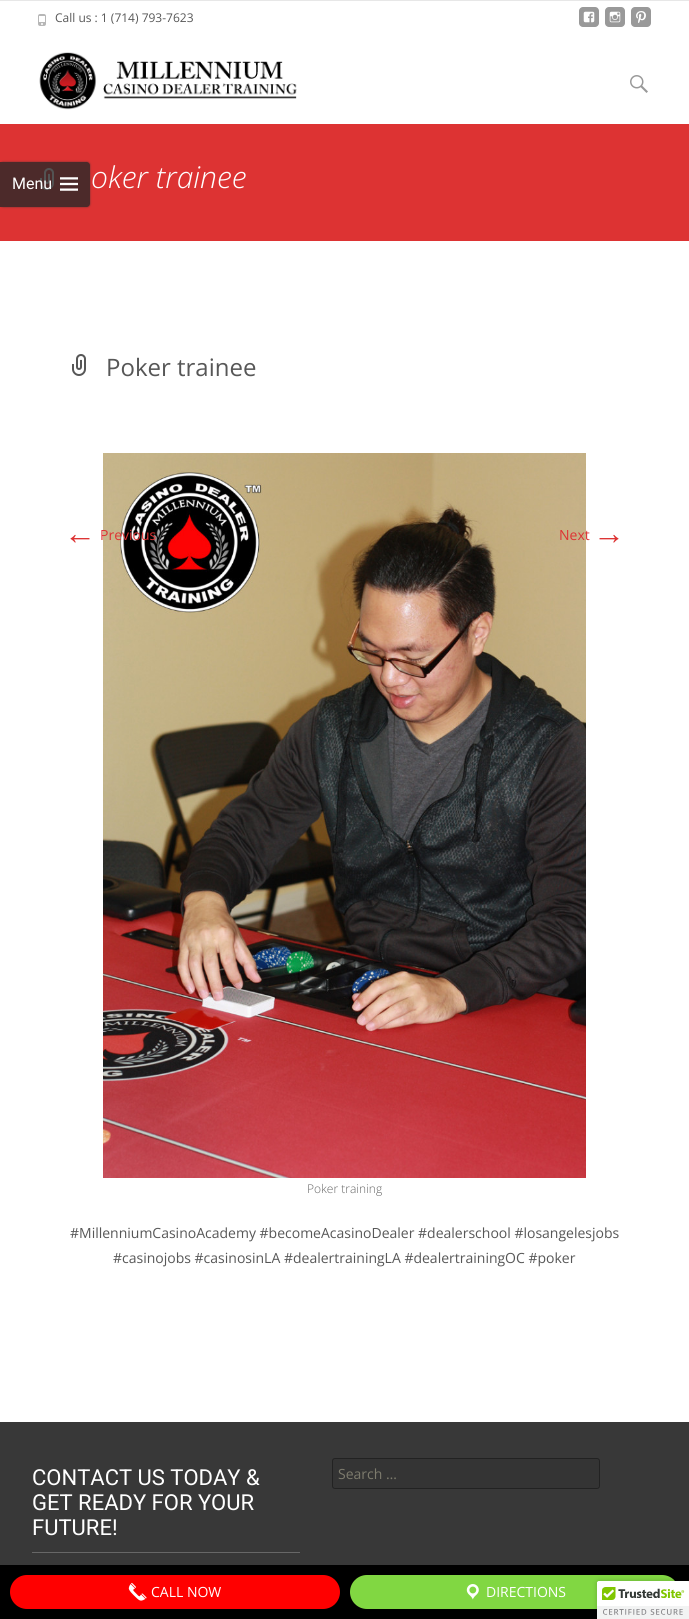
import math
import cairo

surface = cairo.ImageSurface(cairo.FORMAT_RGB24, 689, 1619)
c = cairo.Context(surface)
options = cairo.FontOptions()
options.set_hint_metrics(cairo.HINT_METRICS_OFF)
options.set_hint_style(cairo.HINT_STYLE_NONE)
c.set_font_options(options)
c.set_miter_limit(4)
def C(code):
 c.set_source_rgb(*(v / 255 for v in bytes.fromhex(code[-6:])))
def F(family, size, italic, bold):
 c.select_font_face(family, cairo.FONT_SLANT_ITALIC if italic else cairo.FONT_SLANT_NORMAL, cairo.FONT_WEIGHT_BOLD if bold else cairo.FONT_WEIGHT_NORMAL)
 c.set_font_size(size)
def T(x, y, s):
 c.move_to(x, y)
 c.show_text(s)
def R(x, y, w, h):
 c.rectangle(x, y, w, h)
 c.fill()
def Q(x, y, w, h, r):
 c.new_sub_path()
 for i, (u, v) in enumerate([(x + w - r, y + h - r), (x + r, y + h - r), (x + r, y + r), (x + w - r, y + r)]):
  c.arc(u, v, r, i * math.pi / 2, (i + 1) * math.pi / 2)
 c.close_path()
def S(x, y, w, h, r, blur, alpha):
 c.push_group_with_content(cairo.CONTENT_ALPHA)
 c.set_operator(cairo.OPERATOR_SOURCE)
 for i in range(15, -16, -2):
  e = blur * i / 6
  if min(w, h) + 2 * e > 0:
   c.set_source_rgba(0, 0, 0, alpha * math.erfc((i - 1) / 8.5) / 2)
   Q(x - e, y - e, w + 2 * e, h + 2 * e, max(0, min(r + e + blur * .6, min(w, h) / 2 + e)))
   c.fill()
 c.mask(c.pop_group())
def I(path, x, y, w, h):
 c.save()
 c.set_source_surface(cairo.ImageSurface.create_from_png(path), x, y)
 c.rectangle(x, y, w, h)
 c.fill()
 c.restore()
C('ffffff')
c.paint()
C('e7e7e7')
R(0,0,689,1)
I('1.png',38,14,8,12)
F('Open Sans',12,0,0)
C('575757')
T(55,22,'Call us : 1 (714) 793-7623')
C('999999')
Q(579,7,20,20,4)
c.fill()
I('2.png',583,11,12,12)
Q(605,7,20,20,4)
c.fill()
I('3.png',609,11,12,12)
Q(631,7,20,20,4)
c.fill()
I('4.png',636,11,10,12)
I('5.png',39,52,258,58)
I('6.png',630,75,18,18)
C('dd3333')
R(0,124,689,117)
I('8.png',40,168,14,22)
c.save()
c.set_fill_rule(cairo.FILL_RULE_EVEN_ODD)
c.new_path()
c.move_to(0,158)
c.line_to(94,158)
c.line_to(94,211)
c.line_to(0,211)
c.close_path()
c.move_to(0,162)
c.line_to(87,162)
c.curve_to(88.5,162,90,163.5,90,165)
c.line_to(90,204)
c.curve_to(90,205.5,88.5,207,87,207)
c.line_to(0,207)
c.close_path()
c.clip()
C('323232')
S(0,162,90,45,3,1,.64)
c.restore()
c.set_source_rgba(0.157,0.157,0.157,0.8)
c.new_path()
c.move_to(0,162)
c.line_to(87,162)
c.curve_to(88.5,162,90,163.5,90,165)
c.line_to(90,204)
c.curve_to(90,205.5,88.5,207,87,207)
c.line_to(0,207)
c.close_path()
c.fill()
F('Roboto',16,0,0)
C('ffffff')
T(12,189,'Menu')
I('7.png',60,177,18,14)
F('Open Sans Light',30,1,0)
T(91,188,'oker trainee')
I('9.png',72,354,14,22)
F('Open Sans',24,0,0)
C('575757')
T(106,376,'Poker trainee')
F('Liberation Sans',32,0,0)
C('dd3333')
T(64,544,'←')
I('10.png',103,453,483,725)
F('Open Sans',14,0,0)
T(100,540,'Previous')
T(559,540,'Next')
F('Liberation Sans',32,0,0)
T(593,544,'→')
F('Open Sans Light',12,0,0)
C('666666')
T(307,1193,'Poker training')
F('Open Sans',14,0,0)
C('575757')
T(70,1238,'#MillenniumCasinoAcademy #becomeAcasinoDealer #dealerschool #losangelesjobs')
T(113,1263,'#casinojobs #casinosinLA #dealertrainingLA #dealertrainingOC #poker')
C('383838')
R(0,1422,689,143)
C('676767')
R(32,1552,268,1)
F('Roboto',22,0,0)
C('ffffff')
T(32,1485,'CONTACT US TODAY &')
T(32,1510,'GET READY FOR YOUR')
T(32,1535,'FUTURE!')
C('343434')
Q(332.5,1458.5,267,30,2.5)
c.fill_preserve()
C('222222')
c.set_line_width(1)
c.stroke()
F('Open Sans',14,0,0)
C('7d7b6d')
T(338,1479,'Search …')
C('000000')
R(0,1565,689,54)
C('ff0000')
Q(10,1575,330,34,17)
c.fill()
I('11.png',128,1582,19,19)
C('ffffff')
T(151,1597,'CALL NOW')
C('81d742')
Q(350,1575,329,34,17)
c.fill()
I('12.png',466,1584,13,16)
C('ffffff')
T(486,1597,'DIRECTIONS')
C('000000')
S(597,1581,92,38,2,2.5,.2)
C('ffffff')
c.new_path()
c.move_to(599,1581)
c.line_to(689,1581)
c.line_to(689,1619)
c.line_to(597,1619)
c.line_to(597,1583)
c.curve_to(597,1582,598,1581,599,1581)
c.close_path()
c.fill()
I('13.png',597,1581,92,38)
surface.write_to_png('o.png')
